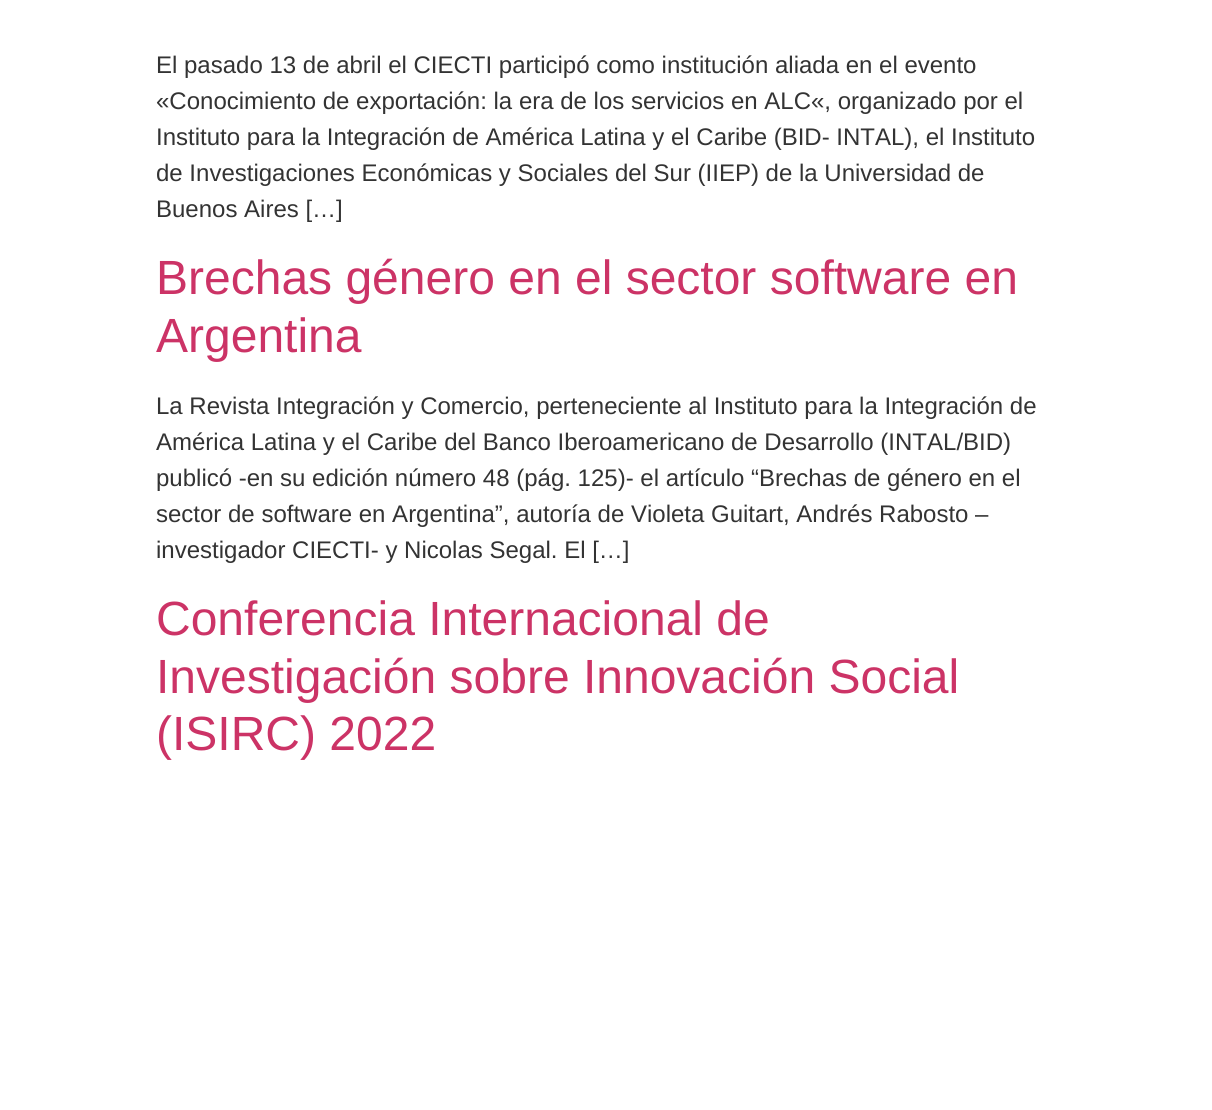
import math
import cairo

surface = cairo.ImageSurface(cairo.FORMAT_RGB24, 1212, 1110)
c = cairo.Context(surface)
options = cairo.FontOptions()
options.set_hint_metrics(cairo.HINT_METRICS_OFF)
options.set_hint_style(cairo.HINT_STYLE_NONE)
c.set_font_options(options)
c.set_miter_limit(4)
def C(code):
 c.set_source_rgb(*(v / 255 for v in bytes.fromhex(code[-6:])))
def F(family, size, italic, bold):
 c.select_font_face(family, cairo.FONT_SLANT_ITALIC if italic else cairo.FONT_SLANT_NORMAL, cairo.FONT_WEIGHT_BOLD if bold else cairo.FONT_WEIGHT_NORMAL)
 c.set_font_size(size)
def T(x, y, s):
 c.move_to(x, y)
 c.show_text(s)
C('ffffff')
c.paint()
F('Liberation Sans',24,0,0)
C('333333')
T(156,73,'El pasado 13 de abril el CIECTI participó como institución aliada en el evento')
T(156,109,'«Conocimiento de exportación: la era de los servicios en ALC«, organizado por el')
T(156,145,'Instituto para la Integración de América Latina y el Caribe (BID- INTAL), el Instituto')
T(156,181,'de Investigaciones Económicas y Sociales del Sur (IIEP) de la Universidad de')
T(156,217,'Buenos Aires […]')
F('Liberation Sans',48,0,0)
C('cc3366')
T(156,294,'Brechas género en el sector software en')
T(156,352,'Argentina')
F('Liberation Sans',24,0,0)
C('333333')
T(156,414,'La Revista Integración y Comercio, perteneciente al Instituto para la Integración de')
T(156,450,'América Latina y el Caribe del Banco Iberoamericano de Desarrollo (INTAL/BID)')
T(156,486,'publicó -en su edición número 48 (pág. 125)- el artículo “Brechas de género en el')
T(156,522,'sector de software en Argentina”, autoría de Violeta Guitart, Andrés Rabosto –')
T(156,558,'investigador CIECTI- y Nicolas Segal. El […]')
F('Liberation Sans',48,0,0)
C('cc3366')
T(156,635,'Conferencia Internacional de')
T(156,693,'Investigación sobre Innovación Social')
T(156,750,'(ISIRC) 2022')
surface.write_to_png('o.png')
